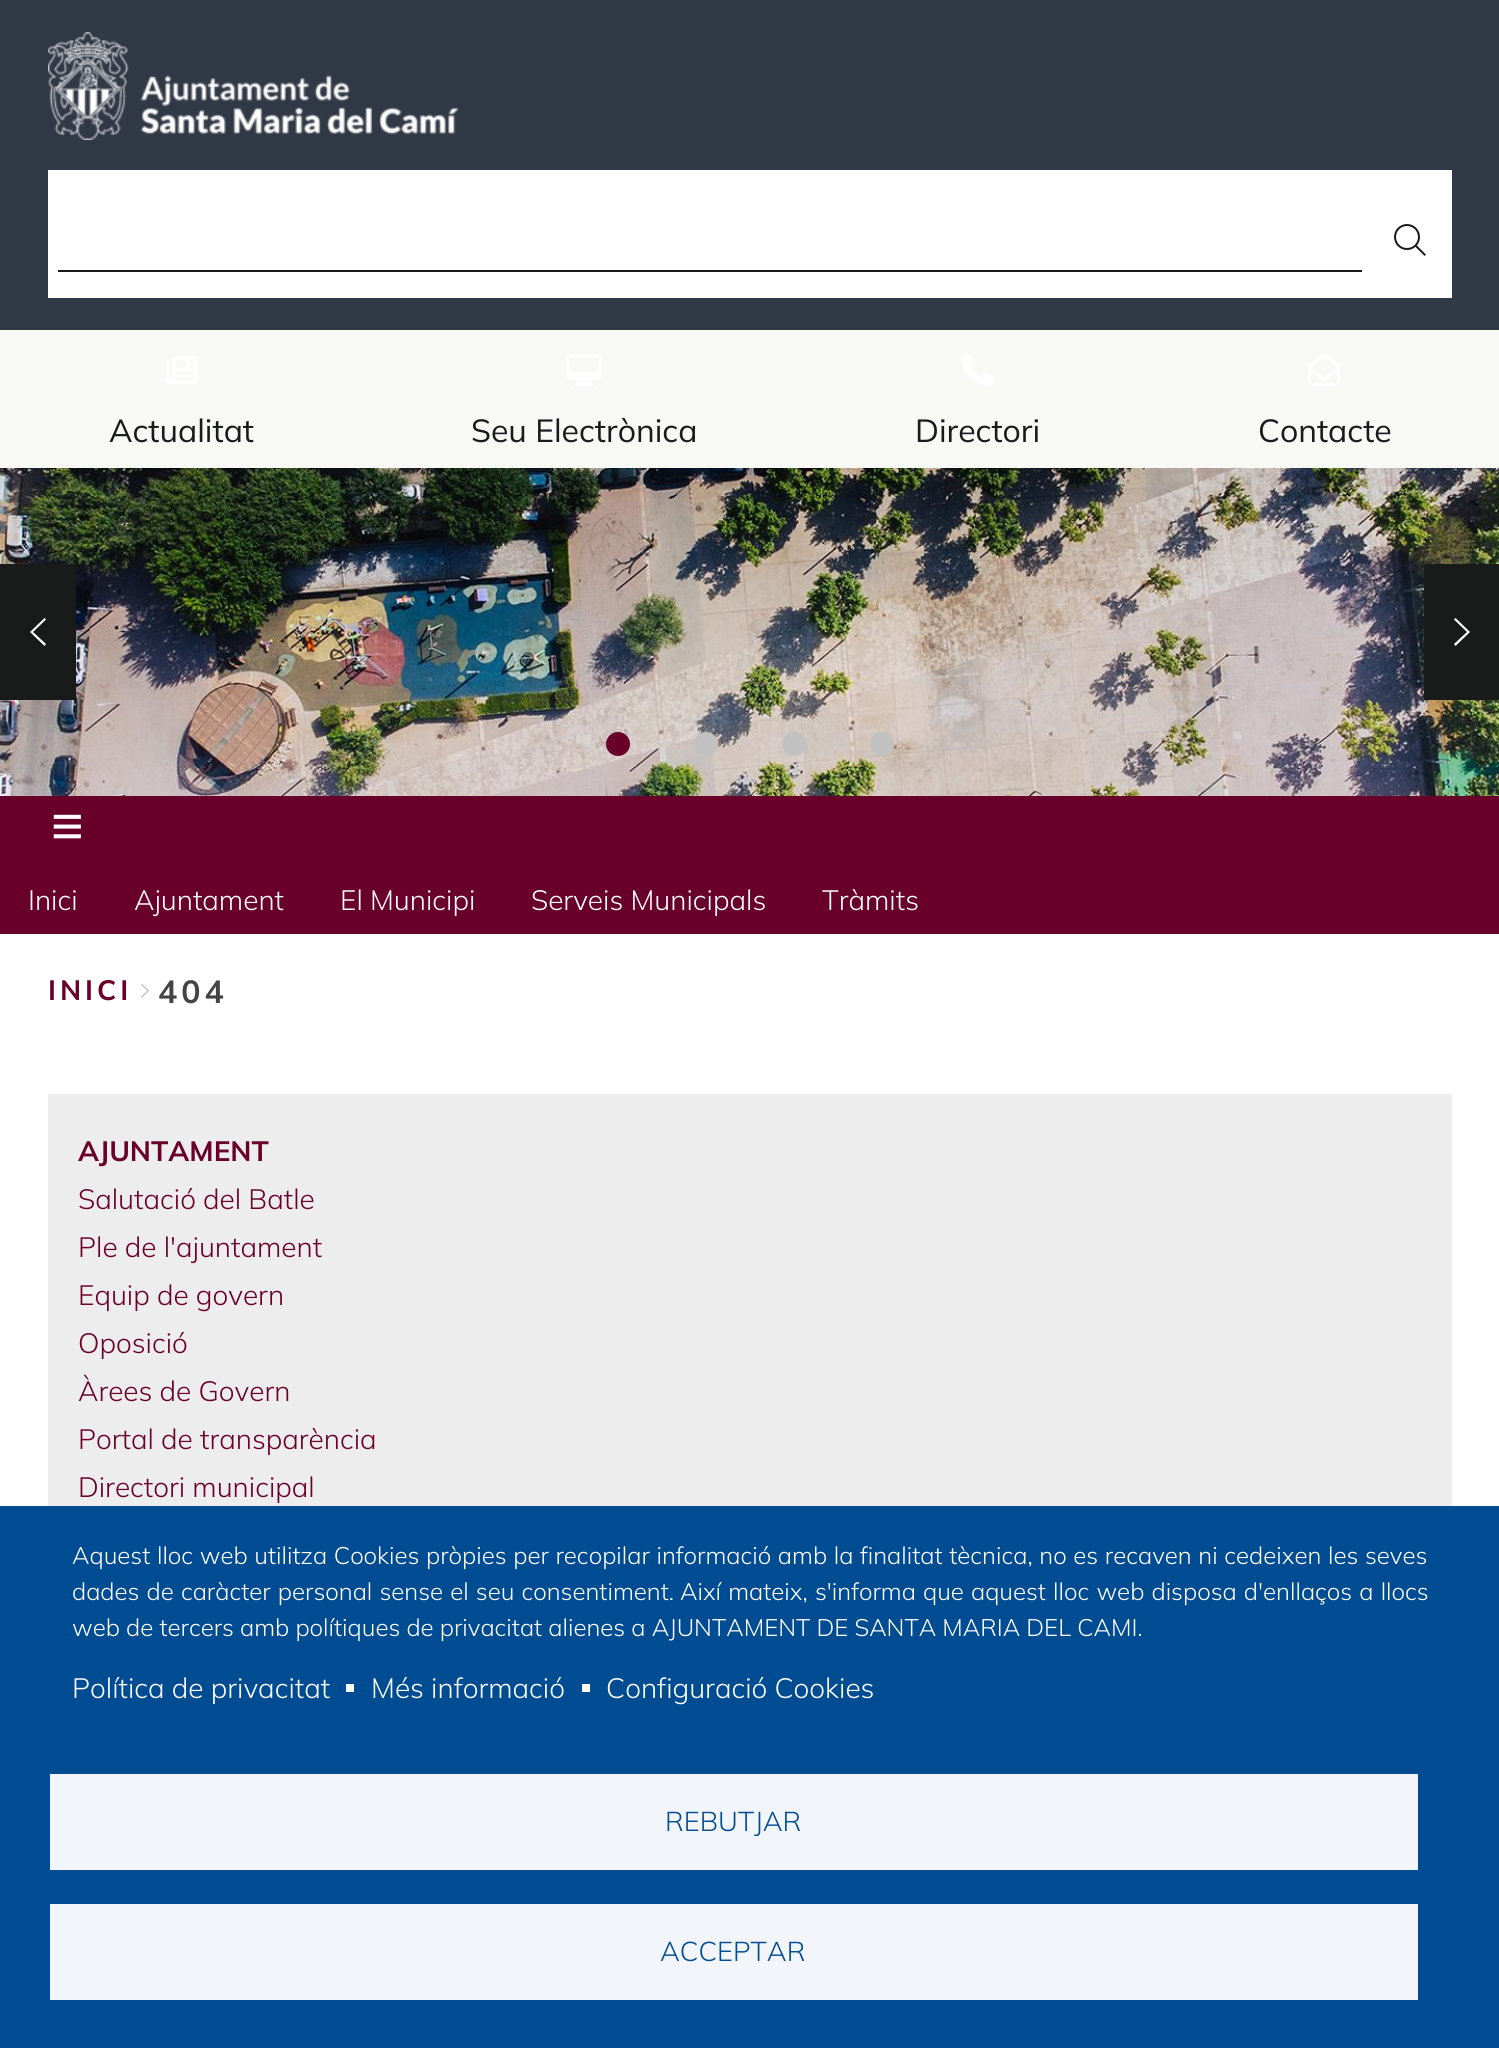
import math
import cairo

surface = cairo.ImageSurface(cairo.FORMAT_RGB24, 1499, 2048)
c = cairo.Context(surface)
options = cairo.FontOptions()
options.set_hint_metrics(cairo.HINT_METRICS_OFF)
options.set_hint_style(cairo.HINT_STYLE_NONE)
c.set_font_options(options)
c.set_miter_limit(4)
def C(code):
 c.set_source_rgb(*(v / 255 for v in bytes.fromhex(code[-6:])))
def F(family, size, italic, bold):
 c.select_font_face(family, cairo.FONT_SLANT_ITALIC if italic else cairo.FONT_SLANT_NORMAL, cairo.FONT_WEIGHT_BOLD if bold else cairo.FONT_WEIGHT_NORMAL)
 c.set_font_size(size)
def T(x, y, s):
 c.move_to(x, y)
 c.show_text(s)
def L(x, y, s, letter, word):
 c.move_to(x, y)
 for ch in s:
  c.show_text(ch)
  c.rel_move_to(letter + word * (ch == ' '), 0)
def R(x, y, w, h):
 c.rectangle(x, y, w, h)
 c.fill()
def I(path, x, y, w, h):
 c.save()
 c.set_source_surface(cairo.ImageSurface.create_from_png(path), x, y)
 c.rectangle(x, y, w, h)
 c.fill()
 c.restore()
C('f8f8f5')
c.paint()
C('323946')
R(0,0,1499,330)
I('1.png',48,32,410,108)
C('ffffff')
R(48,170,1404,128)
I('2.png',1394,224,32,32)
C('191a1a')
R(58,270,1304,2)
I('3.png',166,356,32,28)
F('Mulish',32,0,0)
T(109,442,'Actualitat')
I('4.png',566,354,36,32)
T(471,442,'Seu Electrònica')
I('5.png',962,354,32,32)
T(915,442,'Directori')
I('6.png',1308,354,32,32)
T(1258,442,'Contacte')
C('68002a')
R(0,796,1499,138)
I('7.png',0,468,1499,328)
C('191a1a')
R(0,564,76,136)
C('ffffff')
c.new_path()
c.move_to(33,632)
c.line_to(46,644)
c.line_to(44.5,646)
c.line_to(30,632)
c.line_to(44.5,618)
c.line_to(46,619.5)
c.close_path()
c.fill()
C('191a1a')
R(1424,564,75,136)
C('ffffff')
c.new_path()
c.move_to(1467,632)
c.line_to(1454,619.5)
c.line_to(1455.5,618)
c.line_to(1470,632)
c.line_to(1455.5,646)
c.line_to(1454,644)
c.close_path()
c.fill()
C('68002a')
c.arc(618,744,12,0,2 * math.pi)
c.fill()
C('c1c1c1')
c.arc(706,744,12,0,2 * math.pi)
c.fill()
c.arc(794,744,12,0,2 * math.pi)
c.fill()
c.arc(882,744,12,0,2 * math.pi)
c.fill()
F('Liberation Sans',56,0,1)
C('ffffff')
T(51,845,'≡')
F('Mulish Light',28,0,0)
T(28,910,'Inici')
T(134,910,'Ajuntament')
T(340,910,'El Municipi')
T(531,910,'Serveis Municipals')
T(822,910,'Tràmits')
R(0,934,1499,572)
F('Mulish',28,0,1)
C('68002a')
L(48,1000,'INICI',4,0)
I('8.png',141,984,8,14)
F('Mulish',32,0,1)
C('444444')
L(158,1003,'404',4,0)
C('eeeded')
R(48,1094,1404,412)
F('Mulish',28,0,1)
C('68002a')
T(78,1161,'AJUNTAMENT')
F('Mulish Light',28,0,0)
T(78,1209,'Salutació del Batle')
T(78,1257,'Ple de l\'ajuntament')
T(78,1305,'Equip de govern')
T(78,1353,'Oposició')
T(78,1401,'Àrees de Govern')
T(78,1449,'Portal de transparència')
T(78,1497,'Directori municipal')
C('004c93')
R(0,1506,1499,542)
F('Mulish Light',24,0,0)
C('ffffff')
L(72,1564,'Aquest lloc web utilitza Cookies pròpies per recopilar informació amb la finalitat tècnica, no es recaven ni cedeixen les seves',0,.5)
L(72,1600,'dades de caràcter personal sense el seu consentiment.',0,1)
L(680,1600,'Així mateix, s\'informa que aquest lloc web disposa d\'enllaços a llocs',0,1)
T(72,1636,'web de tercers amb polítiques de privacitat alienes a AJUNTAMENT DE SANTA MARIA DEL CAMI.')
F('Mulish Light',28,0,0)
T(72,1698,'Política de privacitat')
R(346,1684,8,8)
T(371,1698,'Més informació')
R(582,1684,8,8)
T(606,1698,'Configuració Cookies')
C('f2f6fa')
R(50,1774,1368,96)
F('Mulish Light',27.25,0,0)
C('004c93')
T(665,1831,'REBUTJAR')
C('f2f6fa')
R(50,1904,1368,96)
C('004c93')
T(660,1961,'ACCEPTAR')
surface.write_to_png('o.png')
